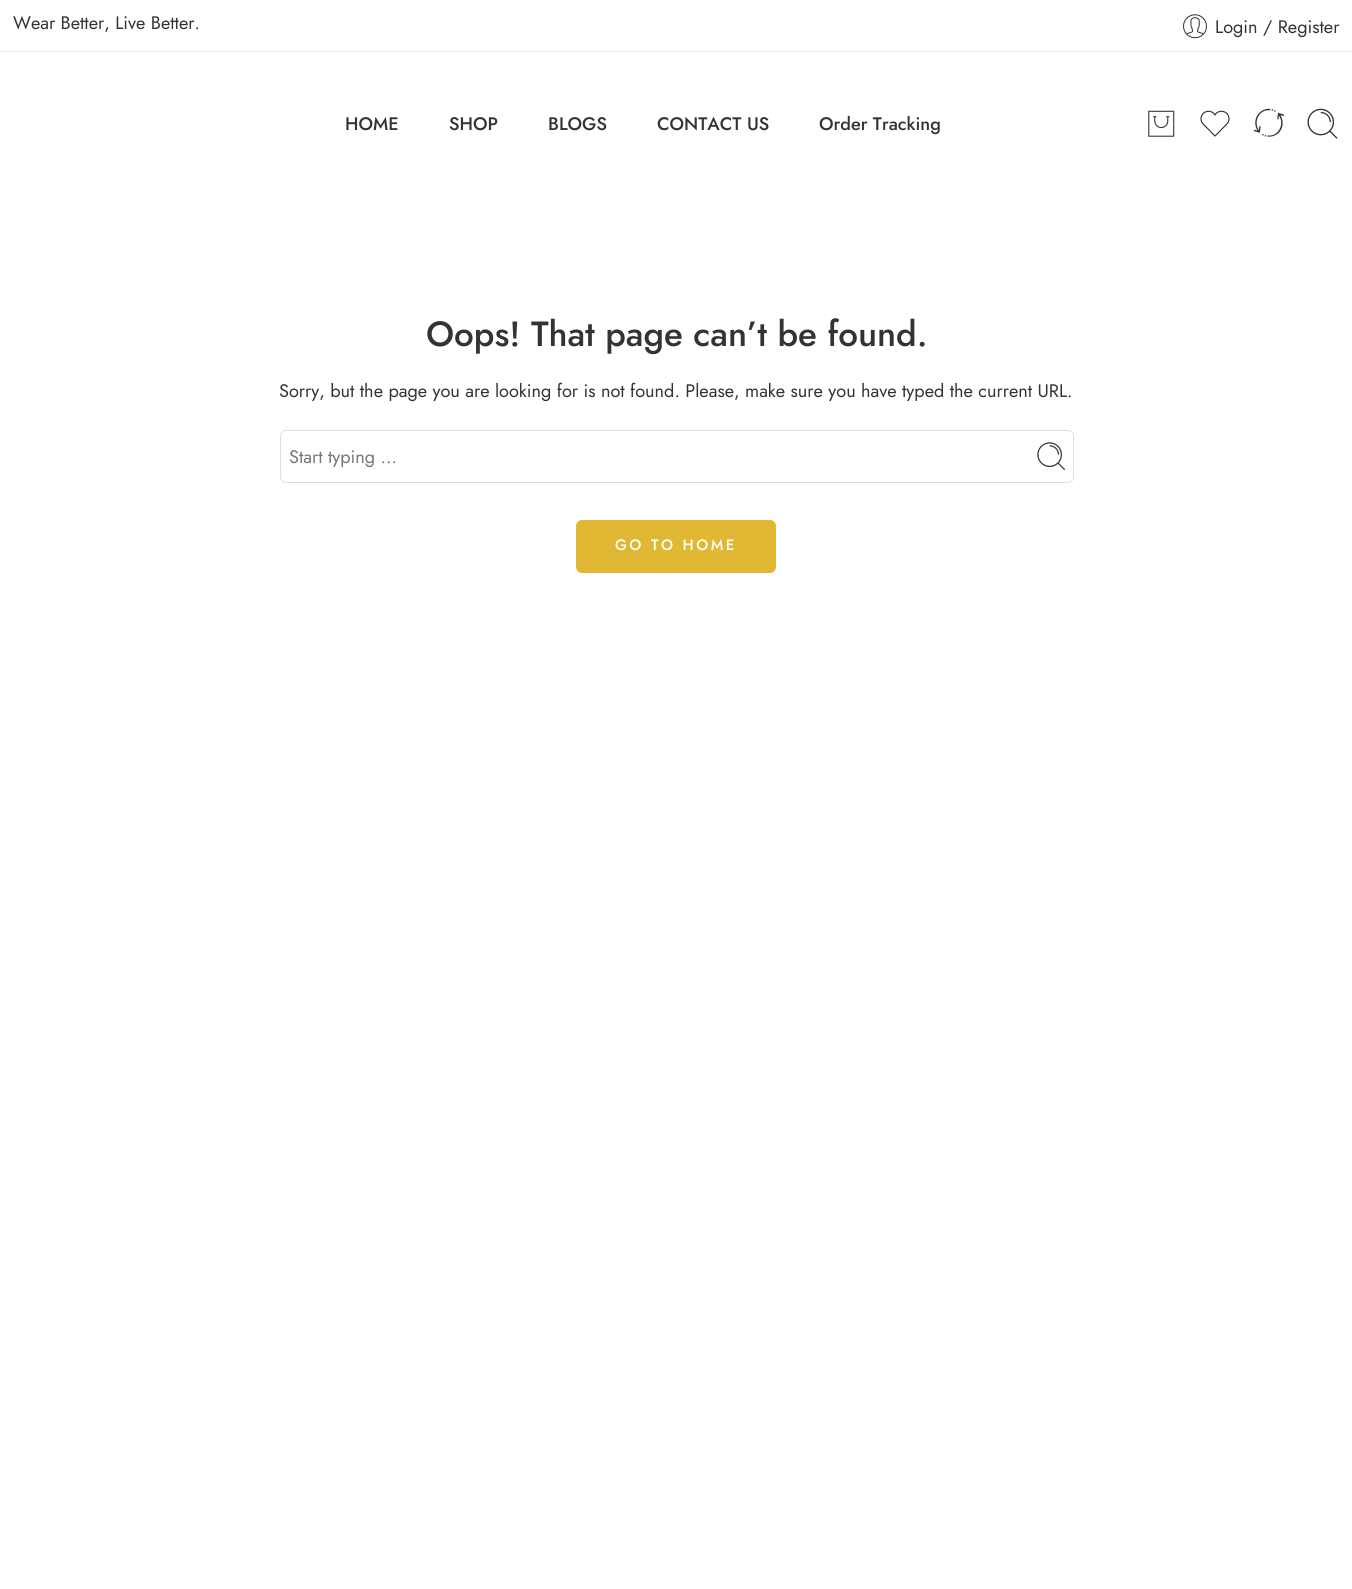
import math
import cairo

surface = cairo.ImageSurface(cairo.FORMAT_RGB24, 1352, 1589)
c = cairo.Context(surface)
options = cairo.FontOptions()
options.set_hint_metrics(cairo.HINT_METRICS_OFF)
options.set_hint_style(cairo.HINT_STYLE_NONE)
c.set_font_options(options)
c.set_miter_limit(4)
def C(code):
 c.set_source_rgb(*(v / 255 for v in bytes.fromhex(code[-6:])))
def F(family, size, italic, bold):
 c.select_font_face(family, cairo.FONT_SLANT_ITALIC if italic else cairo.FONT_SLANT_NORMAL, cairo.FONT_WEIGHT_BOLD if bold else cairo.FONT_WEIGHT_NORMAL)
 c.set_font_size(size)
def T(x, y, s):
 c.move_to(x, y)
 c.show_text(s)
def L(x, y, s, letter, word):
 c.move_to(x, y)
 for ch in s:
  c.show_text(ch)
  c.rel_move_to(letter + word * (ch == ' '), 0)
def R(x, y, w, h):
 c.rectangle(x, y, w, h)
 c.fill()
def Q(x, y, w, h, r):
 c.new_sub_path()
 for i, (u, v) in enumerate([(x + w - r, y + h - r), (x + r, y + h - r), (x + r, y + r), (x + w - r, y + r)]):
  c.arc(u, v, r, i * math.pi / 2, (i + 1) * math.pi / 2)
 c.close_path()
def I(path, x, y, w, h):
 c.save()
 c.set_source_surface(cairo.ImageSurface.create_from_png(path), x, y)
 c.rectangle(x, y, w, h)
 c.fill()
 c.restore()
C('ffffff')
c.paint()
C('ececec')
R(0,51,1352,1)
F('Jost',18.1,0,0)
C('333333')
T(13,29,'Wear Better, Live Better.')
I('1.png',1183,14,24,25)
T(1215,33,'Login / Register')
F('Jost Medium',18.1,0,0)
T(345,130,'HOME')
T(449,130,'SHOP')
T(548,130,'BLOGS')
T(657,130,'CONTACT US')
T(819,130,'Order Tracking')
I('2.png',1148,110,27,27)
I('3.png',1200,110,30,27)
I('4.png',1253,108,32,29)
I('5.png',1307,108,31,31)
F('Jost Medium',35,0,0)
T(426,346,'Oops! That page can’t be found.')
F('Jost',18.1,0,0)
T(279,397,'Sorry, but the page you are looking for is not found. Please, make sure you have typed the current URL.')
Q(280.5,430.5,793,52,5.5)
C('dedede')
c.set_line_width(1)
c.stroke()
C('757575')
T(289,463,'Start typing ...')
I('6.png',1037,442,29,29)
C('e0b833')
Q(576.5,520.5,199,52,5.5)
c.fill_preserve()
c.stroke()
F('Jost Medium',15,0,0)
C('ffffff')
L(615,550,'GO TO HOME',2.5,0)
surface.write_to_png('o.png')
